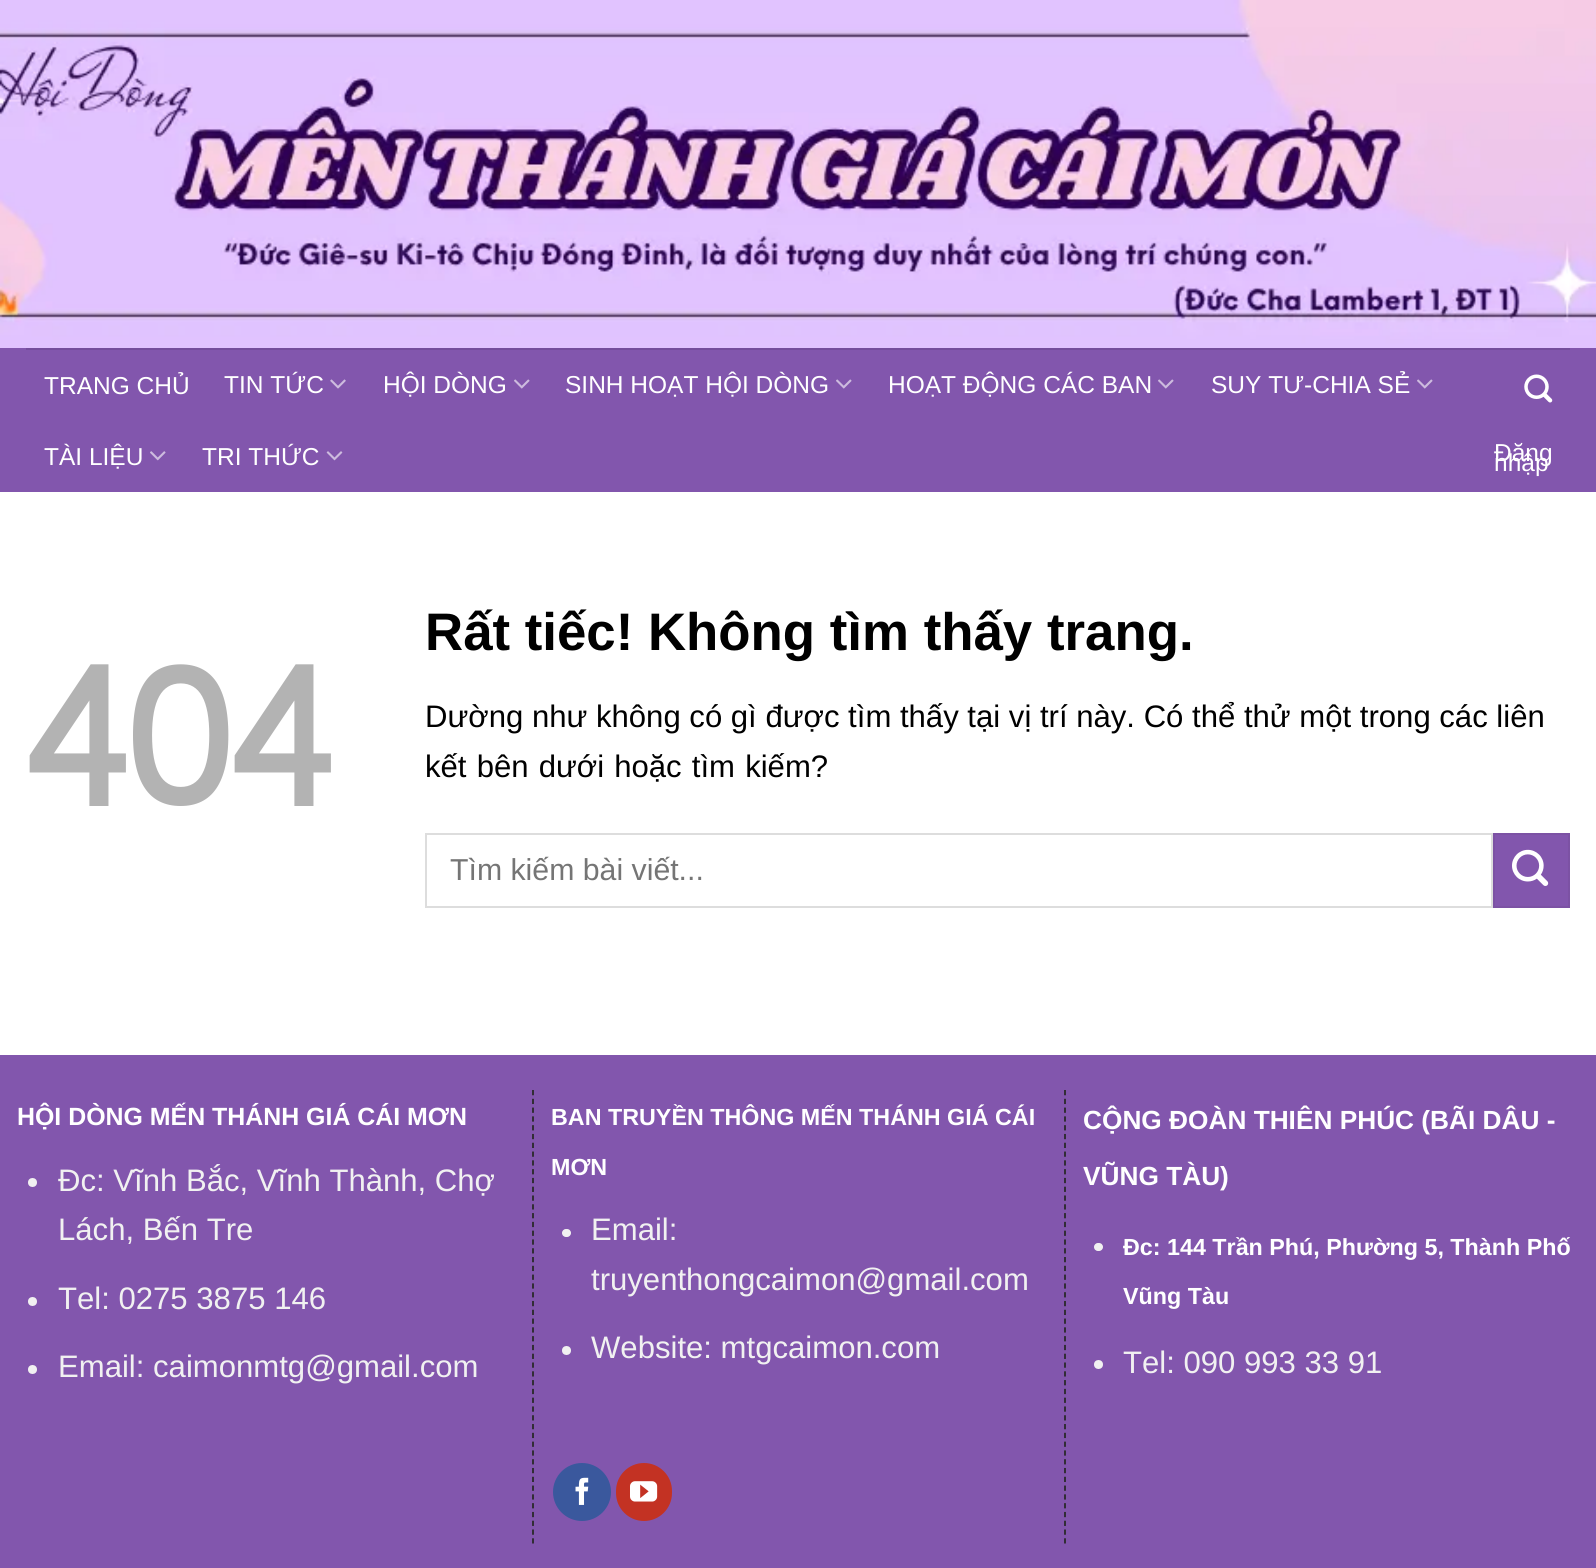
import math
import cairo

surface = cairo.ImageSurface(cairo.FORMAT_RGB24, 1596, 1568)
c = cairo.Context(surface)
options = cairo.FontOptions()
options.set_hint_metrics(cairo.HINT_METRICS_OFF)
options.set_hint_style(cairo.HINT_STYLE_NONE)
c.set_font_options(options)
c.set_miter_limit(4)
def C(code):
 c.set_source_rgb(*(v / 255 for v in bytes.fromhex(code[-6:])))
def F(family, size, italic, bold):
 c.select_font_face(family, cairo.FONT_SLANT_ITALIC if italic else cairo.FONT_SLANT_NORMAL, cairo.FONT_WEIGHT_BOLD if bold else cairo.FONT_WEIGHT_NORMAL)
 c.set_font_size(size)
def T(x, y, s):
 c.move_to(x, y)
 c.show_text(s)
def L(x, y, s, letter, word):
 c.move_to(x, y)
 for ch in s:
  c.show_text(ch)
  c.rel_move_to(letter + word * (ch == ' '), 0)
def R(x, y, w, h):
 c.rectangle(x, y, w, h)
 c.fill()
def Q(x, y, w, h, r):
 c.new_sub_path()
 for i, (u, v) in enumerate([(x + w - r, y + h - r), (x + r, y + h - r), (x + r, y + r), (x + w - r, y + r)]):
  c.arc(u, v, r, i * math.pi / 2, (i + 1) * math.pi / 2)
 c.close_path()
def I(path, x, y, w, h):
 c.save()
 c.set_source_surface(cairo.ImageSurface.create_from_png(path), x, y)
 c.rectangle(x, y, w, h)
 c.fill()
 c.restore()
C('ffffff')
c.paint()
I('1.png',0,0,1596,348)
C('8256ad')
R(0,348,1596,144)
C('754d9c')
R(26,348,1544,2)
F('Liberation Sans',24.5,0,0)
C('ffffff')
T(44,394,'TRANG CHỦ')
T(224,393,'TIN TỨC')
I('2.png',330,379,16,10)
T(383,393,'HỘI DÒNG')
I('3.png',514,379,16,10)
T(565,393,'SINH HOẠT HỘI DÒNG')
I('3.png',836,379,16,10)
T(888,393,'HOẠT ĐỘNG CÁC BAN')
I('3.png',1158,379,16,10)
T(1211,393,'SUY TƯ-CHIA SẺ')
I('3.png',1417,379,16,10)
T(44,465,'TÀI LIỆU')
I('4.png',150,451,16,10)
T(202,465,'TRI THỨC')
I('5.png',326,451,17,10)
I('6.png',1524,374,29,29)
T(1494,461,'Đăng')
T(1494,471,'nhập')
F('Content',186,0,1)
C('b3b3b3')
T(26,806,'404')
F('Liberation Sans',52.8,0,1)
C('000000')
T(425,650,'Rất tiếc! Không tìm thấy trang.')
F('Liberation Sans',31.1,0,0)
T(425,727,'Dường như không có gì được tìm thấy tại vị trí này. Có thể thử một trong các liên')
L(425,777,'kết bên dưới hoặc tìm kiếm?',0,1.5)
c.rectangle(426,834,1066,73)
C('dddddd')
c.stroke()
F('Liberation Sans',30.25,0,0)
C('757575')
T(450,880,'Tìm kiếm bài viết...')
C('8256ad')
c.rectangle(1494,834,75,73)
c.fill_preserve()
C('7c52a4')
c.stroke()
I('7.png',1512,849,37,37)
C('8256ad')
R(0,1055,1596,513)
F('Liberation Sans',24.9,0,1)
C('ffffff')
T(17,1125,'HỘI DÒNG MẾN THÁNH GIÁ CÁI MƠN')
C('f1f1f1')
c.new_path()
c.arc(32.5,1182.5,4.5,0,2 * math.pi)
c.fill()
F('Liberation Sans',31.1,0,0)
T(58,1191,'Đc: Vĩnh Bắc, Vĩnh Thành, Chợ')
T(58,1240,'Lách, Bến Tre')
c.new_path()
c.arc(32.5,1301.5,4.5,0,2 * math.pi)
c.fill()
T(58,1309,'Tel: 0275 3875 146')
c.new_path()
c.arc(32.5,1369.5,4.5,0,2 * math.pi)
c.fill()
T(58,1377,'Email: caimonmtg@gmail.com')
c.new_path()
c.move_to(533,1090)
c.line_to(533,1543.5)
C('292929')
c.set_line_width(1.8)
c.set_dash([5.25,3.54])
c.stroke()
F('Liberation Sans',23.3,0,1)
C('ffffff')
T(551,1125,'BAN TRUYỀN THÔNG MẾN THÁNH GIÁ CÁI')
T(551,1175,'MƠN')
C('f1f1f1')
Q(562,1229,9,8,4)
c.fill()
F('Liberation Sans',31.1,0,0)
T(591,1240,'Email:')
T(591,1290,'truyenthongcaimon@gmail.com')
c.new_path()
c.arc(566.5,1350.5,4.5,0,2 * math.pi)
c.fill()
T(591,1358,'Website: mtgcaimon.com')
C('3a589d')
c.new_path()
c.arc(582,1492,28,0,2 * math.pi)
c.fill_preserve()
c.set_line_width(2)
c.set_dash([])
c.stroke()
I('8.png',575,1477,14,28)
C('c33223')
Q(617,1464,54,56,27)
c.fill_preserve()
c.stroke()
I('9.png',630,1481,28,21)
c.new_path()
c.move_to(1065,1090)
c.line_to(1065,1543.5)
C('292929')
c.set_line_width(1.8)
c.set_dash([5.25,3.54])
c.stroke()
F('Liberation Sans',26.25,0,1)
C('ffffff')
T(1083,1129,'CỘNG ĐOÀN THIÊN PHÚC (BÃI DÂU -')
T(1083,1185,'VŨNG TÀU)')
C('f1f1f1')
Q(1094,1243,9,8,4)
c.fill()
F('Liberation Sans',23.3,0,1)
C('ffffff')
T(1123,1255,'Đc: 144 Trần Phú, Phường 5, Thành Phố')
T(1123,1304,'Vũng Tàu')
C('f1f1f1')
c.new_path()
c.arc(1098.5,1364.5,4.5,0,2 * math.pi)
c.fill()
F('Liberation Sans',31.1,0,0)
T(1123,1373,'Tel: 090 993 33 91')
surface.write_to_png('o.png')
